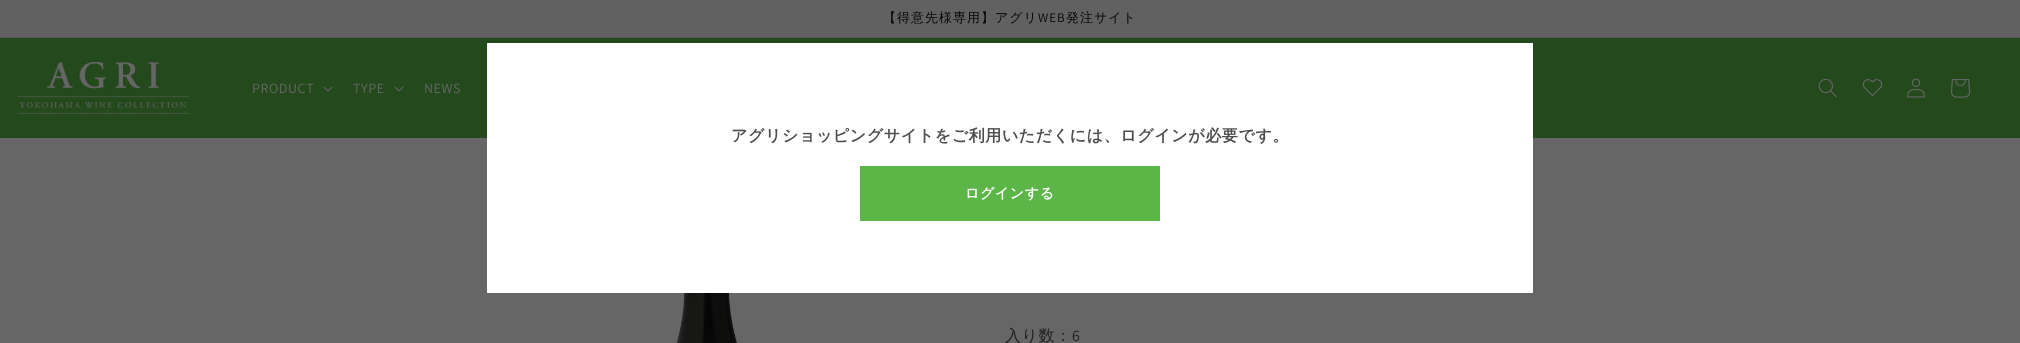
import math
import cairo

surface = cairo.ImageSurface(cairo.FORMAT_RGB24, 2020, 343)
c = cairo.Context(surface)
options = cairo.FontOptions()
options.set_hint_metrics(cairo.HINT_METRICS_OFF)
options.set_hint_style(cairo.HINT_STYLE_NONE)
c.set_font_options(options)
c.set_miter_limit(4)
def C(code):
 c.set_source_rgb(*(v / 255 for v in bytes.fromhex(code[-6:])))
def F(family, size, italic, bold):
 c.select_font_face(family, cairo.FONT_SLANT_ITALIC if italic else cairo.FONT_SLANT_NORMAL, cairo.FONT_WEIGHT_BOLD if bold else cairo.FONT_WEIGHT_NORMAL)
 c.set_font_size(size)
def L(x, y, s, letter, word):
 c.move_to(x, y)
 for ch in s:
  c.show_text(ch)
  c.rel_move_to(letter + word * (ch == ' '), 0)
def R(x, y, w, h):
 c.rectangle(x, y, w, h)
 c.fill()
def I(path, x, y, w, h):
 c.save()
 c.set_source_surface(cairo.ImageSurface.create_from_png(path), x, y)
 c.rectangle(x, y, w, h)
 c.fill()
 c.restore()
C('666666')
c.paint()
C('616161')
R(0,0,2020,37)
C('5a5a5a')
R(0,37,2020,1)
F('WenQuanYi Zen Hei Medium',13,0,0)
C('070707')
L(883,22,'【得意先様専用】アグリ',1,0)
F('Assistant',13,0,0)
L(1038,22,'WEB',1,0)
F('WenQuanYi Zen Hei Medium',13,0,0)
L(1066,22,'発注サイト',1,0)
C('24491c')
R(0,38,2020,100)
I('1.png',17,59,175,56)
F('Assistant',14,0,0)
C('666666')
L(252,93,'PRODUCT',.6,0)
I('2.png',323,86,10,6)
L(353,93,'TYPE',.6,0)
I('2.png',394,86,10,6)
L(424,93,'NEWS',.6,0)
I('3.png',1818,78,19,20)
I('4.png',1862,79,21,18)
I('5.png',1907,78,18,20)
I('6.png',1951,79,20,19)
C('ffffff')
R(487,43,1046,250)
F('WenQuanYi Zen Hei',16,0,1)
C('4d4d4d')
L(731,141,'アグリショッピングサイトをご利用いただくには、ログインが必要です。',.6,0)
C('5bb647')
R(860,166,300,55)
F('WenQuanYi Zen Hei',14,0,1)
C('ffffff')
L(965,198,'ログインする',.6,0)
I('7.png',676,293,61,50)
F('WenQuanYi Zen Hei Medium',16,0,0)
C('1f1f1f')
L(1005,341,'入り数：',.6,0)
F('Assistant',16,0,0)
L(1072,341,'6',.6,0)
surface.write_to_png('o.png')
